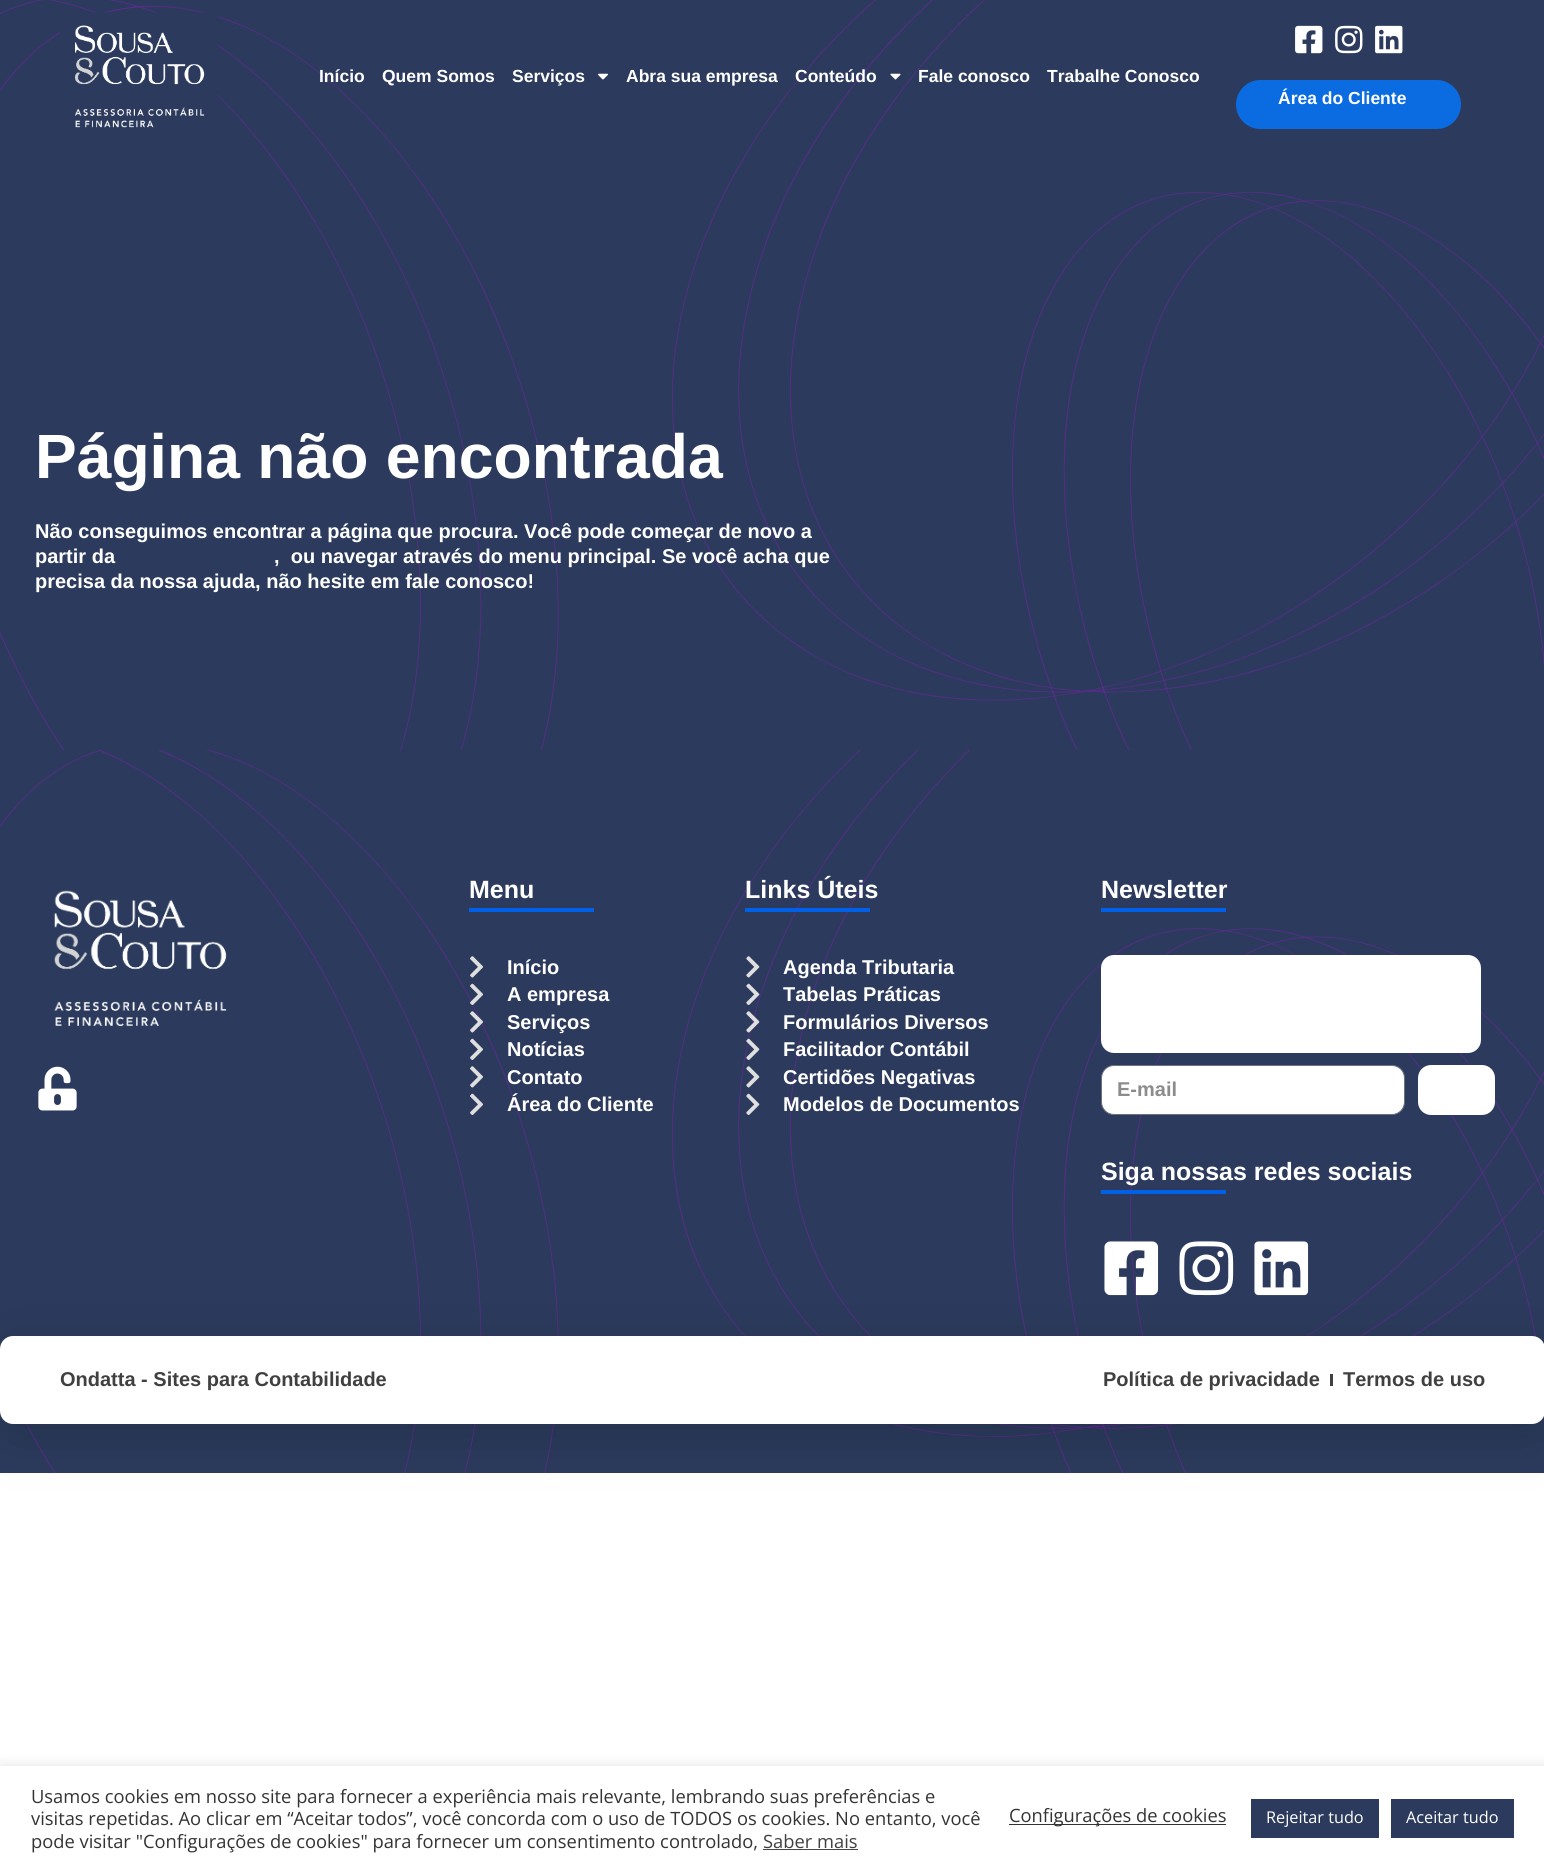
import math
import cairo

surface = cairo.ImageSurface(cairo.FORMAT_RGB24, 1544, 1868)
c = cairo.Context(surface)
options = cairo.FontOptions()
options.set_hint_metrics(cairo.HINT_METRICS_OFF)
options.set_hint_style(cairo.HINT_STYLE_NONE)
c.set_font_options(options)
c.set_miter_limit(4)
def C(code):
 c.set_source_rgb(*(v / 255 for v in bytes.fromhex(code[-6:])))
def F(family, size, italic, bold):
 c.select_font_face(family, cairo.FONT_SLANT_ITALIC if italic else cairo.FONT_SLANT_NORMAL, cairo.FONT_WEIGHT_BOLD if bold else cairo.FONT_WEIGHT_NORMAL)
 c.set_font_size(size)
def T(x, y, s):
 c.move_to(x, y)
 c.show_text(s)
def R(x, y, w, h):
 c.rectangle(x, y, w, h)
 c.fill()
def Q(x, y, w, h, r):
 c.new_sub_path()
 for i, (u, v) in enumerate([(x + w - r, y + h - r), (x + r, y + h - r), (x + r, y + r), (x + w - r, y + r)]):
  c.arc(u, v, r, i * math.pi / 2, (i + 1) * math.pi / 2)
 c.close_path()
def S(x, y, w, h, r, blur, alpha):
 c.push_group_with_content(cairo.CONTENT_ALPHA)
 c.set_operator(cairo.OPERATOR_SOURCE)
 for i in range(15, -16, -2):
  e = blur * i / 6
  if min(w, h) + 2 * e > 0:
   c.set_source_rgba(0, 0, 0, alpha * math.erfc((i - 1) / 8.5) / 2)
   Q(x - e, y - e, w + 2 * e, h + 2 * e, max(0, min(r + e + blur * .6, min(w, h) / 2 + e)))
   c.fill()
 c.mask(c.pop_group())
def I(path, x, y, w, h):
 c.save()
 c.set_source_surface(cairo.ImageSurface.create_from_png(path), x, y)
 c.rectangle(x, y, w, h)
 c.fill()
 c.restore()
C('ffffff')
c.paint()
C('2c3b5d')
R(0,0,1544,1473)
I('7.png',0,0,1544,750)
I('1.png',60,12,158,116)
F('Liberation Sans',17.5,0,1)
C('ffffff')
T(319,82,'Início')
T(382,82,'Quem Somos')
T(512,82,'Serviços')
I('2.png',597,73,11,7)
T(626,82,'Abra sua empresa')
T(795,82,'Conteúdo')
I('3.png',890,73,11,7)
T(918,82,'Fale conosco')
T(1047,82,'Trabalhe Conosco')
I('4.png',1295,25,28,29)
I('5.png',1335,25,28,29)
I('6.png',1375,25,28,29)
C('0b6ce1')
Q(1236,80,225,49,24.5)
c.fill()
C('ffffff')
T(1278,104,'Área do Cliente')
F('Liberation Sans',62.5,0,1)
T(35,478,'Página não encontrada')
F('Liberation Sans',20,0,1)
T(35,538,'Não conseguimos encontrar a página que procura. Você pode começar de novo a')
T(35,563,'partir da')
T(274,563,',  ou navegar através do menu principal. Se você acha que')
T(35,588,'precisa da nossa ajuda, não hesite em fale conosco!')
I('8.png',0,750,1544,723)
I('9.png',54,890,173,136)
I('10.png',38,1066,39,45)
F('Liberation Sans',25,0,1)
T(469,898,'Menu')
C('0060e8')
R(469,908,125,4)
I('11.png',470,956,13,22)
F('Liberation Sans',20,0,1)
C('ffffff')
T(507,974,'Início')
I('12.png',470,983,13,22)
T(507,1001,'A empresa')
I('13.png',470,1011,13,22)
T(507,1029,'Serviços')
I('14.png',470,1038,13,22)
T(507,1056,'Notícias')
I('11.png',470,1066,13,22)
T(507,1084,'Contato')
I('14.png',470,1093,13,22)
T(507,1111,'Área do Cliente')
F('Liberation Sans',25,0,1)
T(745,898,'Links Úteis')
C('0060e8')
R(745,908,125,4)
I('15.png',746,956,14,22)
F('Liberation Sans',20,0,1)
C('ffffff')
T(783,974,'Agenda Tributaria')
I('16.png',746,983,14,22)
T(783,1001,'Tabelas Práticas')
I('17.png',746,1011,14,22)
T(783,1029,'Formulários Diversos')
I('18.png',746,1038,14,22)
T(783,1056,'Facilitador Contábil')
I('15.png',746,1066,14,22)
T(783,1084,'Certidões Negativas')
I('19.png',746,1093,14,22)
T(783,1111,'Modelos de Documentos')
F('Liberation Sans',25,0,1)
T(1101,898,'Newsletter')
C('0060e8')
R(1101,908,125,4)
C('ffffff')
Q(1101,955,380,98,13)
c.fill()
Q(1101.5,1065.5,303,49,12.5)
c.fill_preserve()
C('69727d')
c.set_line_width(1)
c.stroke()
F('Liberation Sans',20,0,1)
C('8c8c8c')
T(1117,1096,'E-mail')
C('ffffff')
Q(1418,1065,77,50,13)
c.fill()
F('Liberation Sans',25,0,1)
T(1101,1180,'Siga nossas redes sociais')
C('0060e8')
R(1101,1190,125,4)
I('20.png',1104,1241,55,55)
I('21.png',1179,1241,55,55)
I('22.png',1254,1241,55,55)
C('000000')
S(13,1361,1520,63,0,31,.25)
C('ffffff')
Q(0,1336,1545,88,13)
c.fill()
F('Liberation Sans',20,0,1)
C('404040')
T(60,1386,'Ondatta - Sites para Contabilidade')
T(1103,1386,'Política de privacidade')
R(1330,1374,3,12)
T(1343,1386,'Termos de uso')
C('acabab')
S(0,1765,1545,103,0,6,.3)
C('ffffff')
R(0,1766,1544,102)
F('Open Sans',18.33,0,0)
C('333333')
T(31,1803,'Usamos cookies em nosso site para fornecer a experiência mais relevante, lembrando suas preferências e')
T(31,1825,'visitas repetidas. Ao clicar em “Aceitar todos”, você concorda com o uso de TODOS os cookies. No entanto, você')
T(31,1848,'pode visitar "Configurações de cookies" para fornecer um consentimento controlado,')
C('404040')
T(763,1848,'Saber mais')
C('444444')
R(763,1849,95,1)
C('333333')
R(1009,1824,217,1)
T(1009,1822,'Configurações de cookies')
C('2c3b5d')
R(1251,1799,128,39)
F('Open Sans',16.25,0,0)
C('ffffff')
T(1266,1823,'Rejeitar tudo')
C('2c3b5d')
R(1391,1799,123,39)
C('ffffff')
T(1406,1823,'Aceitar tudo')
surface.write_to_png('o.png')
